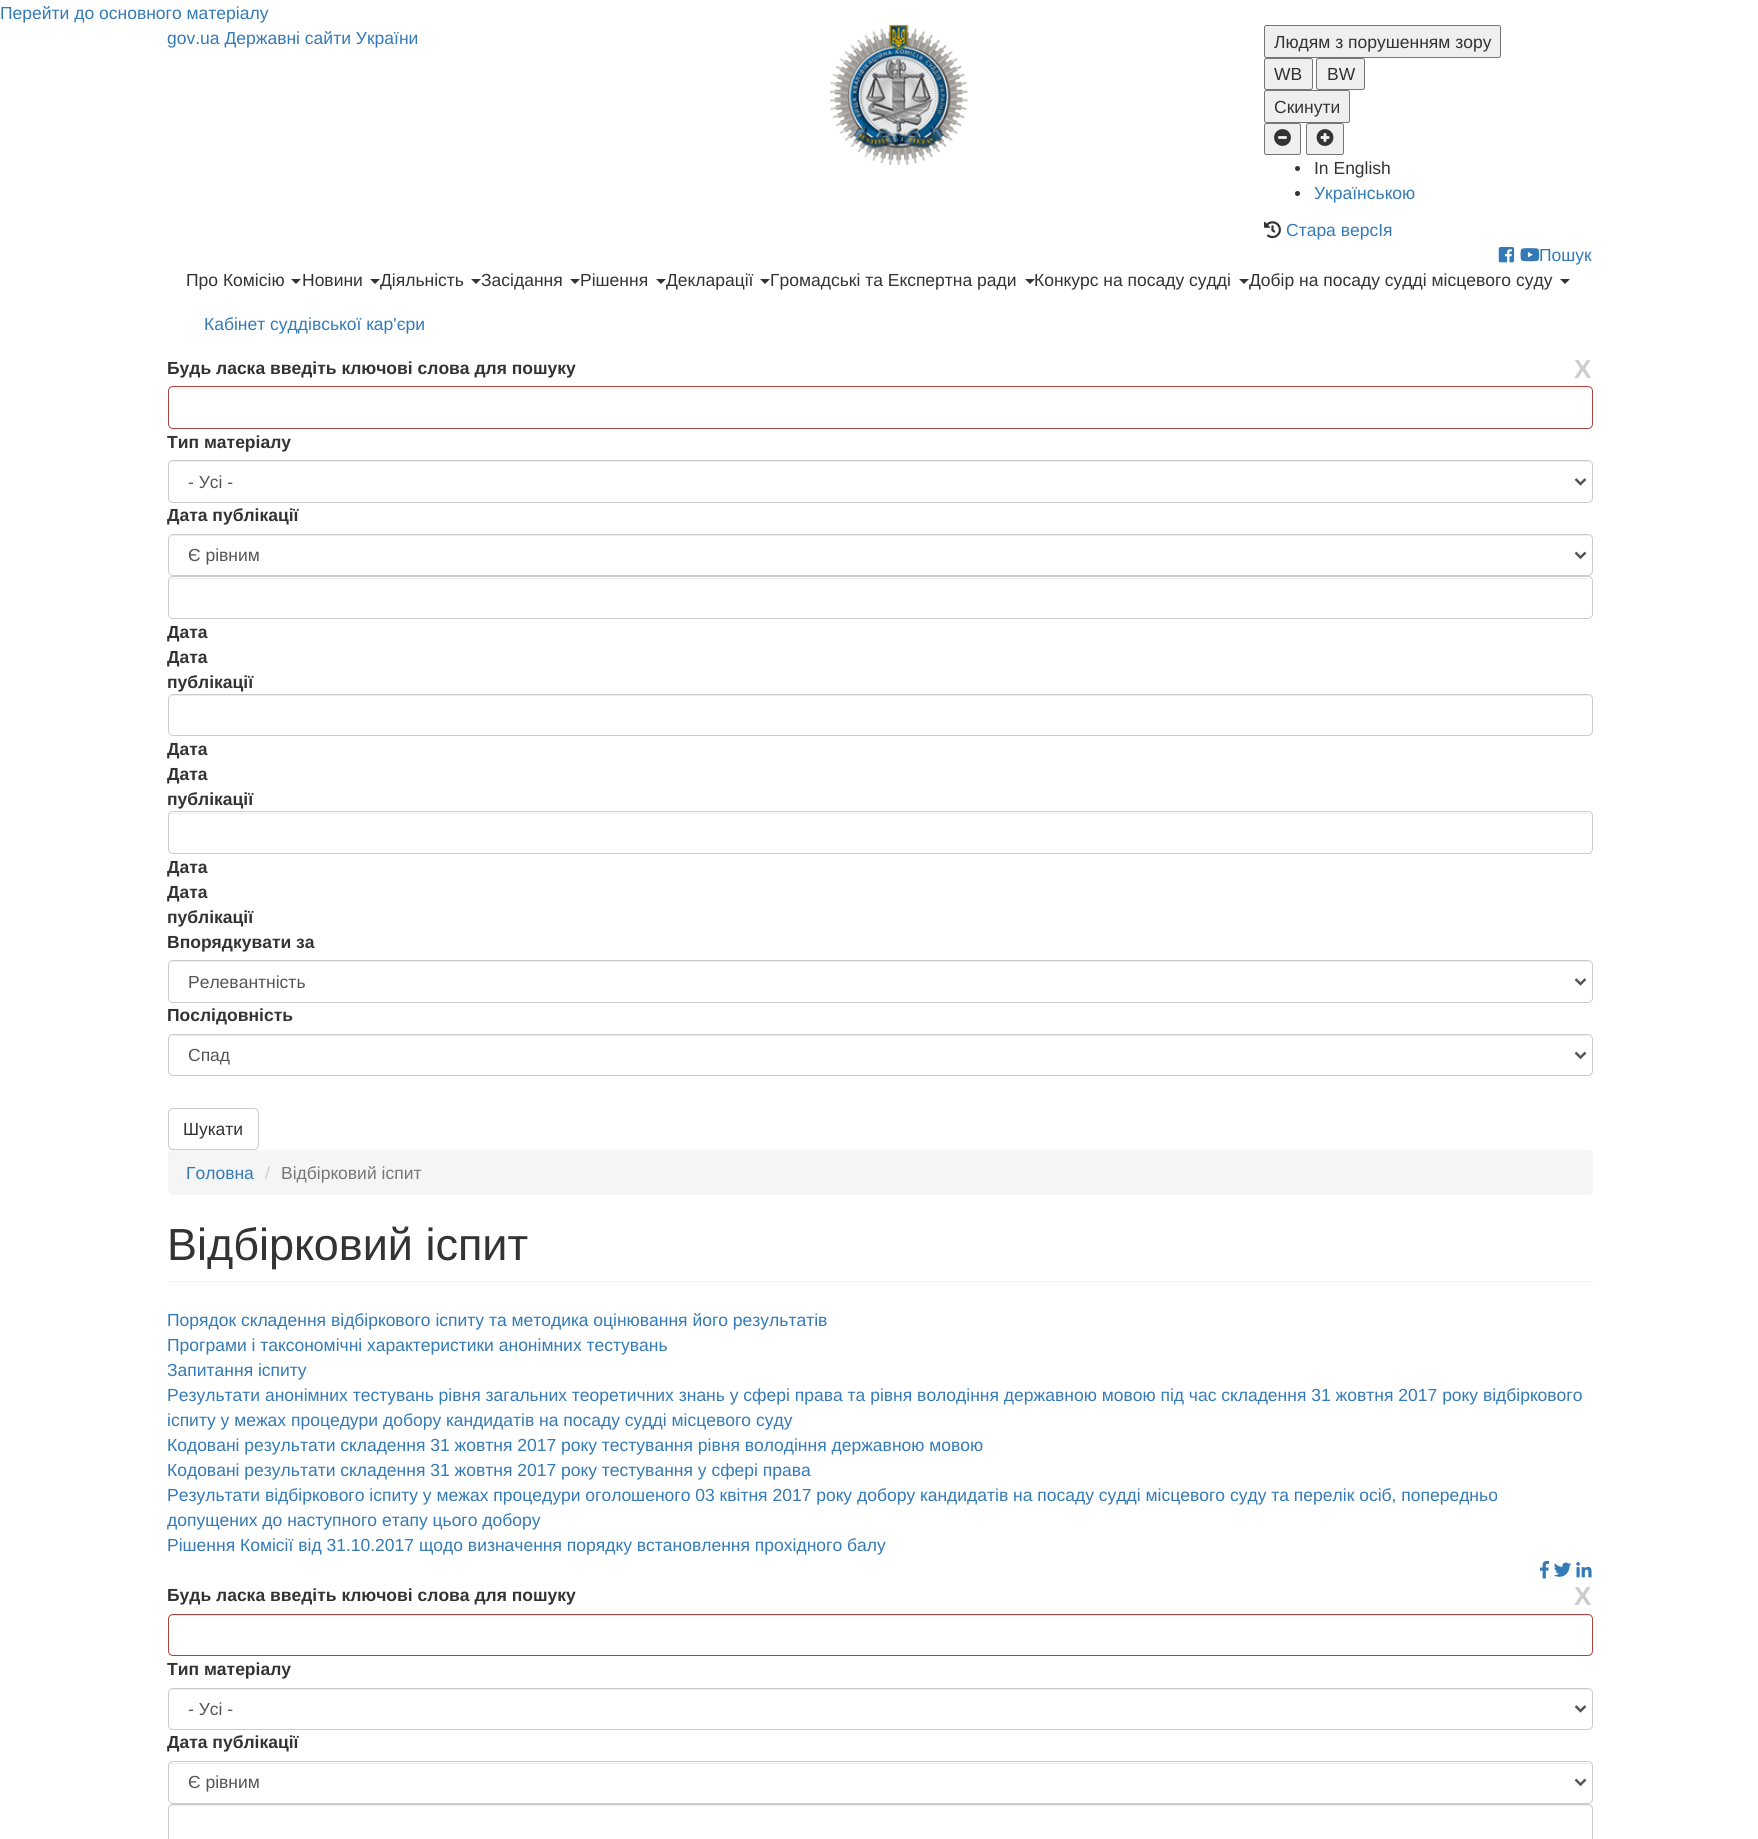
import math
import cairo

surface = cairo.ImageSurface(cairo.FORMAT_RGB24, 1758, 1839)
c = cairo.Context(surface)
options = cairo.FontOptions()
options.set_hint_metrics(cairo.HINT_METRICS_OFF)
options.set_hint_style(cairo.HINT_STYLE_NONE)
c.set_font_options(options)
c.set_miter_limit(4)
def C(code):
 c.set_source_rgb(*(v / 255 for v in bytes.fromhex(code[-6:])))
def F(family, size, italic, bold):
 c.select_font_face(family, cairo.FONT_SLANT_ITALIC if italic else cairo.FONT_SLANT_NORMAL, cairo.FONT_WEIGHT_BOLD if bold else cairo.FONT_WEIGHT_NORMAL)
 c.set_font_size(size)
def T(x, y, s):
 c.move_to(x, y)
 c.show_text(s)
def R(x, y, w, h):
 c.rectangle(x, y, w, h)
 c.fill()
def Q(x, y, w, h, r):
 c.new_sub_path()
 for i, (u, v) in enumerate([(x + w - r, y + h - r), (x + r, y + h - r), (x + r, y + r), (x + w - r, y + r)]):
  c.arc(u, v, r, i * math.pi / 2, (i + 1) * math.pi / 2)
 c.close_path()
def I(path, x, y, w, h):
 c.save()
 c.set_source_surface(cairo.ImageSurface.create_from_png(path), x, y)
 c.rectangle(x, y, w, h)
 c.fill()
 c.restore()
C('ffffff')
c.paint()
F('Liberation Sans',17.5,0,0)
C('337ab7')
T(0,19,'Перейти до основного матеріалу')
T(167,44,'gov.ua Державні сайти України')
I('1.png',830,25,138,140)
C('efefef')
Q(1264.5,25.5,236,32,2)
c.fill_preserve()
C('767676')
c.set_line_width(1)
c.stroke()
C('333333')
T(1274,48,'Людям з порушенням зору')
C('efefef')
Q(1264.5,58.5,48,31,2)
c.fill_preserve()
C('767676')
c.stroke()
C('333333')
T(1274,80,'WB')
C('efefef')
Q(1316.5,58.5,48,31,2)
c.fill_preserve()
C('767676')
c.stroke()
C('333333')
T(1327,80,'BW')
C('efefef')
Q(1264.5,90.5,85,32,2)
c.fill_preserve()
C('767676')
c.stroke()
C('333333')
T(1274,113,'Скинути')
C('efefef')
Q(1264.5,123.5,36,31,2)
c.fill_preserve()
C('767676')
c.stroke()
I('2.png',1274,129,17,17)
C('efefef')
Q(1306.5,123.5,37,31,2)
c.fill_preserve()
C('767676')
c.stroke()
I('3.png',1316,129,18,17)
C('333333')
c.arc(1297.5,168.5,2.5,0,2 * math.pi)
c.fill()
T(1314,174,'In English')
c.new_path()
c.arc(1297.5,193.5,2.5,0,2 * math.pi)
c.fill()
C('337ab7')
T(1314,199,'Українською')
I('4.png',1264,221,17,18)
T(1286,236,'Стара версІя')
I('5.png',1498,247,17,16)
I('6.png',1520,248,20,14)
T(1539,261,'Пошук')
C('333333')
T(186,286,'Про Комісію')
c.new_path()
c.move_to(291,279)
c.line_to(301,279)
c.line_to(296,284)
c.close_path()
c.fill()
T(302,286,'Новини')
c.new_path()
c.move_to(370,279)
c.line_to(380,279)
c.line_to(375,284)
c.close_path()
c.fill()
T(380,286,'Діяльність')
c.new_path()
c.move_to(471,279)
c.line_to(481,279)
c.line_to(476,284)
c.close_path()
c.fill()
T(481,286,'Засідання')
c.new_path()
c.move_to(570,279)
c.line_to(580,279)
c.line_to(575,284)
c.close_path()
c.fill()
T(580,286,'Рішення')
c.new_path()
c.move_to(656,279)
c.line_to(666,279)
c.line_to(661,284)
c.close_path()
c.fill()
T(666,286,'Декларації')
c.new_path()
c.move_to(760,279)
c.line_to(770,279)
c.line_to(765,284)
c.close_path()
c.fill()
T(770,286,'Громадські та Експертна ради')
c.new_path()
c.move_to(1025,279)
c.line_to(1035,279)
c.line_to(1030,284)
c.close_path()
c.fill()
T(1034,286,'Конкурс на посаду судді')
c.new_path()
c.move_to(1239,279)
c.line_to(1249,279)
c.line_to(1244,284)
c.close_path()
c.fill()
T(1249,286,'Добір на посаду судді місцевого суду')
c.new_path()
c.move_to(1560,279)
c.line_to(1570,279)
c.line_to(1565,284)
c.close_path()
c.fill()
C('337ab7')
T(204,330,'Кабінет суддівської кар\'єри')
F('Liberation Sans',17.5,0,1)
C('333333')
T(167,374,'Будь ласка введіть ключові слова для пошуку')
C('ececec')
c.new_path()
c.move_to(172,389)
c.line_to(1588,389)
c.line_to(1590,390)
c.curve_to(1590,389,1588,388,1587,388)
c.line_to(173,388)
c.curve_to(172,388,170,389,170,390)
c.close_path()
c.fill()
Q(168.5,386.5,1424,42,4.5)
C('a94442')
c.stroke()
C('333333')
T(167,448,'Тип матеріалу')
C('ececec')
c.new_path()
c.move_to(172,462)
c.line_to(1588,462)
c.curve_to(1590,462,1591,464,1591,466)
c.line_to(1591,465)
c.curve_to(1591,463,1589,461,1587,461)
c.line_to(173,461)
c.curve_to(171,461,169,463,169,465)
c.line_to(169,466)
c.curve_to(169,464,170,462,172,462)
c.close_path()
c.fill()
Q(168.5,460.5,1424,42,4.5)
C('cccccc')
c.stroke()
c.new_path()
c.move_to(1575.5,479)
c.line_to(1580.5,484)
c.line_to(1585.5,479)
C('555555')
c.set_line_width(2.5)
c.stroke()
F('Liberation Sans',17.5,0,0)
T(188,488,'- Усі -')
F('Liberation Sans',17.5,0,1)
C('333333')
T(167,521,'Дата публікації')
C('ececec')
c.new_path()
c.move_to(172,536)
c.line_to(1588,536)
c.curve_to(1590,536,1591,538,1591,540)
c.line_to(1591,539)
c.curve_to(1591,537,1589,535,1587,535)
c.line_to(173,535)
c.curve_to(171,535,169,537,169,539)
c.line_to(169,540)
c.curve_to(169,538,170,536,172,536)
c.close_path()
c.fill()
Q(168.5,534.5,1424,41,4.5)
C('cccccc')
c.set_line_width(1)
c.stroke()
c.new_path()
c.move_to(1575.5,552.5)
c.line_to(1580.5,557.5)
c.line_to(1585.5,552.5)
C('555555')
c.set_line_width(2.5)
c.stroke()
F('Liberation Sans',17.5,0,0)
T(188,561,'Є рівним')
C('ececec')
c.new_path()
c.move_to(172,579)
c.line_to(1588,579)
c.line_to(1590,580)
c.curve_to(1590,579,1588,578,1587,578)
c.line_to(173,578)
c.curve_to(172,578,170,579,170,580)
c.close_path()
c.fill()
Q(168.5,576.5,1424,42,4.5)
C('cccccc')
c.set_line_width(1)
c.stroke()
F('Liberation Sans',17.5,0,1)
C('333333')
T(167,638,'Дата')
T(167,663,'Дата')
T(167,688,'публікації')
C('ececec')
c.new_path()
c.move_to(172,696)
c.line_to(1588,696)
c.curve_to(1590,696,1591,698,1591,700)
c.line_to(1591,699)
c.curve_to(1591,697,1589,695,1587,695)
c.line_to(173,695)
c.curve_to(171,695,169,697,169,699)
c.line_to(169,700)
c.curve_to(169,698,170,696,172,696)
c.close_path()
c.fill()
Q(168.5,694.5,1424,41,4.5)
C('cccccc')
c.stroke()
C('333333')
T(167,755,'Дата')
T(167,780,'Дата')
T(167,805,'публікації')
C('ececec')
c.new_path()
c.move_to(172,814)
c.line_to(1588,814)
c.curve_to(1590,814,1591,815,1591,818)
c.line_to(1591,817)
c.curve_to(1591,815,1589,813,1587,813)
c.line_to(173,813)
c.curve_to(171,813,169,815,169,817)
c.line_to(169,818)
c.curve_to(169,815,170,814,172,814)
c.close_path()
c.fill()
Q(168.5,811.5,1424,42,4.5)
C('cccccc')
c.stroke()
C('333333')
T(167,873,'Дата')
T(167,898,'Дата')
T(167,923,'публікації')
T(167,948,'Впорядкувати за')
C('ececec')
c.new_path()
c.move_to(172,962)
c.line_to(1588,962)
c.curve_to(1590,962,1591,964,1591,966)
c.line_to(1591,965)
c.curve_to(1591,963,1589,961,1587,961)
c.line_to(173,961)
c.curve_to(171,961,169,963,169,965)
c.line_to(169,966)
c.curve_to(169,964,170,962,172,962)
c.close_path()
c.fill()
Q(168.5,960.5,1424,42,4.5)
C('cccccc')
c.stroke()
c.new_path()
c.move_to(1575.5,979)
c.line_to(1580.5,984)
c.line_to(1585.5,979)
C('555555')
c.set_line_width(2.5)
c.stroke()
F('Liberation Sans',17.5,0,0)
T(188,988,'Релевантність')
F('Liberation Sans',17.5,0,1)
C('333333')
T(167,1021,'Послідовність')
C('ececec')
c.new_path()
c.move_to(172,1036)
c.line_to(1588,1036)
c.curve_to(1590,1036,1591,1038,1591,1040)
c.line_to(1591,1039)
c.curve_to(1591,1037,1589,1035,1587,1035)
c.line_to(173,1035)
c.curve_to(171,1035,169,1037,169,1039)
c.line_to(169,1040)
c.curve_to(169,1038,170,1036,172,1036)
c.close_path()
c.fill()
Q(168.5,1034.5,1424,41,4.5)
C('cccccc')
c.set_line_width(1)
c.stroke()
c.new_path()
c.move_to(1575.5,1052.5)
c.line_to(1580.5,1057.5)
c.line_to(1585.5,1052.5)
C('555555')
c.set_line_width(2.5)
c.stroke()
F('Liberation Sans',17.5,0,0)
T(188,1061,'Спад')
Q(168.5,1108.5,90,41,4.5)
C('cccccc')
c.set_line_width(1)
c.stroke()
C('333333')
T(183,1135,'Шукати')
F('Liberation Sans',26,0,1)
C('cccccc')
T(1574,378,'X')
C('f5f5f5')
Q(168,1150,1425,45,5)
c.fill()
F('Liberation Sans',17.5,0,0)
C('337ab7')
T(186,1179,'Головна')
C('cccccc')
T(265,1179,'/')
C('777777')
T(281,1179,'Відбірковий іспит')
C('eeeeee')
R(168,1281,1425,1)
F('Liberation Sans',45,0,0)
C('333333')
T(167,1260,'Відбірковий іспит')
F('Liberation Sans',17.5,0,0)
C('337ab7')
T(167,1326,'Порядок складення відбіркового іспиту та методика оцінювання його результатів')
T(167,1351,'Програми і таксономічні характеристики анонімних тестувань')
T(167,1376,'Запитання іспиту')
T(167,1401,'Результати анонімних тестувань рівня загальних теоретичних знань у сфері права та рівня володіння державною мовою під час складення 31 жовтня 2017 року відбіркового')
T(167,1426,'іспиту у межах процедури добору кандидатів на посаду судді місцевого суду')
T(167,1451,'Кодовані результати складення 31 жовтня 2017 року тестування рівня володіння державною мовою')
T(167,1476,'Кодовані результати складення 31 жовтня 2017 року тестування у сфері права')
T(167,1501,'Результати відбіркового іспиту у межах процедури оголошеного 03 квітня 2017 року добору кандидатів на посаду судді місцевого суду та перелік осіб, попередньо')
T(167,1526,'допущених до наступного етапу цього добору')
T(167,1551,'Рішення Комісії від 31.10.2017 щодо визначення порядку встановлення прохідного балу')
I('7.png',1540,1560,10,19)
I('8.png',1554,1562,18,15)
I('9.png',1576,1562,16,16)
F('Liberation Sans',17.5,0,1)
C('333333')
T(167,1601,'Будь ласка введіть ключові слова для пошуку')
C('ececec')
c.new_path()
c.move_to(172,1616)
c.line_to(1588,1616)
c.curve_to(1590,1616,1591,1618,1591,1620)
c.line_to(1591,1619)
c.curve_to(1591,1617,1589,1615,1587,1615)
c.line_to(173,1615)
c.curve_to(171,1615,169,1617,169,1619)
c.line_to(169,1620)
c.curve_to(169,1618,170,1616,172,1616)
c.close_path()
c.fill()
Q(168.5,1614.5,1424,41,4.5)
C('a94442')
c.stroke()
C('333333')
T(167,1675,'Тип матеріалу')
C('ececec')
c.new_path()
c.move_to(172,1690)
c.line_to(1588,1690)
c.curve_to(1590,1690,1591,1692,1591,1694)
c.line_to(1591,1693)
c.curve_to(1591,1691,1589,1689,1587,1689)
c.line_to(173,1689)
c.curve_to(171,1689,169,1691,169,1693)
c.line_to(169,1694)
c.curve_to(169,1692,170,1690,172,1690)
c.close_path()
c.fill()
Q(168.5,1688.5,1424,41,4.5)
C('cccccc')
c.stroke()
c.new_path()
c.move_to(1575.5,1706)
c.line_to(1580.5,1711)
c.line_to(1585.5,1706)
C('555555')
c.set_line_width(2.5)
c.stroke()
F('Liberation Sans',17.5,0,0)
T(188,1715,'- Усі -')
F('Liberation Sans',17.5,0,1)
C('333333')
T(167,1748,'Дата публікації')
C('ececec')
c.new_path()
c.move_to(172,1764)
c.line_to(1588,1764)
c.curve_to(1590,1764,1591,1765,1591,1768)
c.line_to(1591,1767)
c.curve_to(1591,1765,1589,1763,1587,1763)
c.line_to(173,1763)
c.curve_to(171,1763,169,1765,169,1767)
c.line_to(169,1768)
c.curve_to(169,1765,170,1764,172,1764)
c.close_path()
c.fill()
Q(168.5,1761.5,1424,42,4.5)
C('cccccc')
c.set_line_width(1)
c.stroke()
c.new_path()
c.move_to(1575.5,1779.5)
c.line_to(1580.5,1784.5)
c.line_to(1585.5,1779.5)
C('555555')
c.set_line_width(2.5)
c.stroke()
F('Liberation Sans',17.5,0,0)
T(188,1788,'Є рівним')
C('ececec')
c.new_path()
c.move_to(172,1806)
c.line_to(1588,1806)
c.curve_to(1590,1806,1591,1808,1591,1810)
c.line_to(1591,1809)
c.curve_to(1591,1807,1589,1805,1587,1805)
c.line_to(173,1805)
c.curve_to(171,1805,169,1807,169,1809)
c.line_to(169,1810)
c.curve_to(169,1808,170,1806,172,1806)
c.close_path()
c.fill()
Q(168.5,1804.5,1424,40,4.5)
C('cccccc')
c.set_line_width(1)
c.stroke()
F('Liberation Sans',26,0,1)
T(1574,1605,'X')
surface.write_to_png('o.png')
